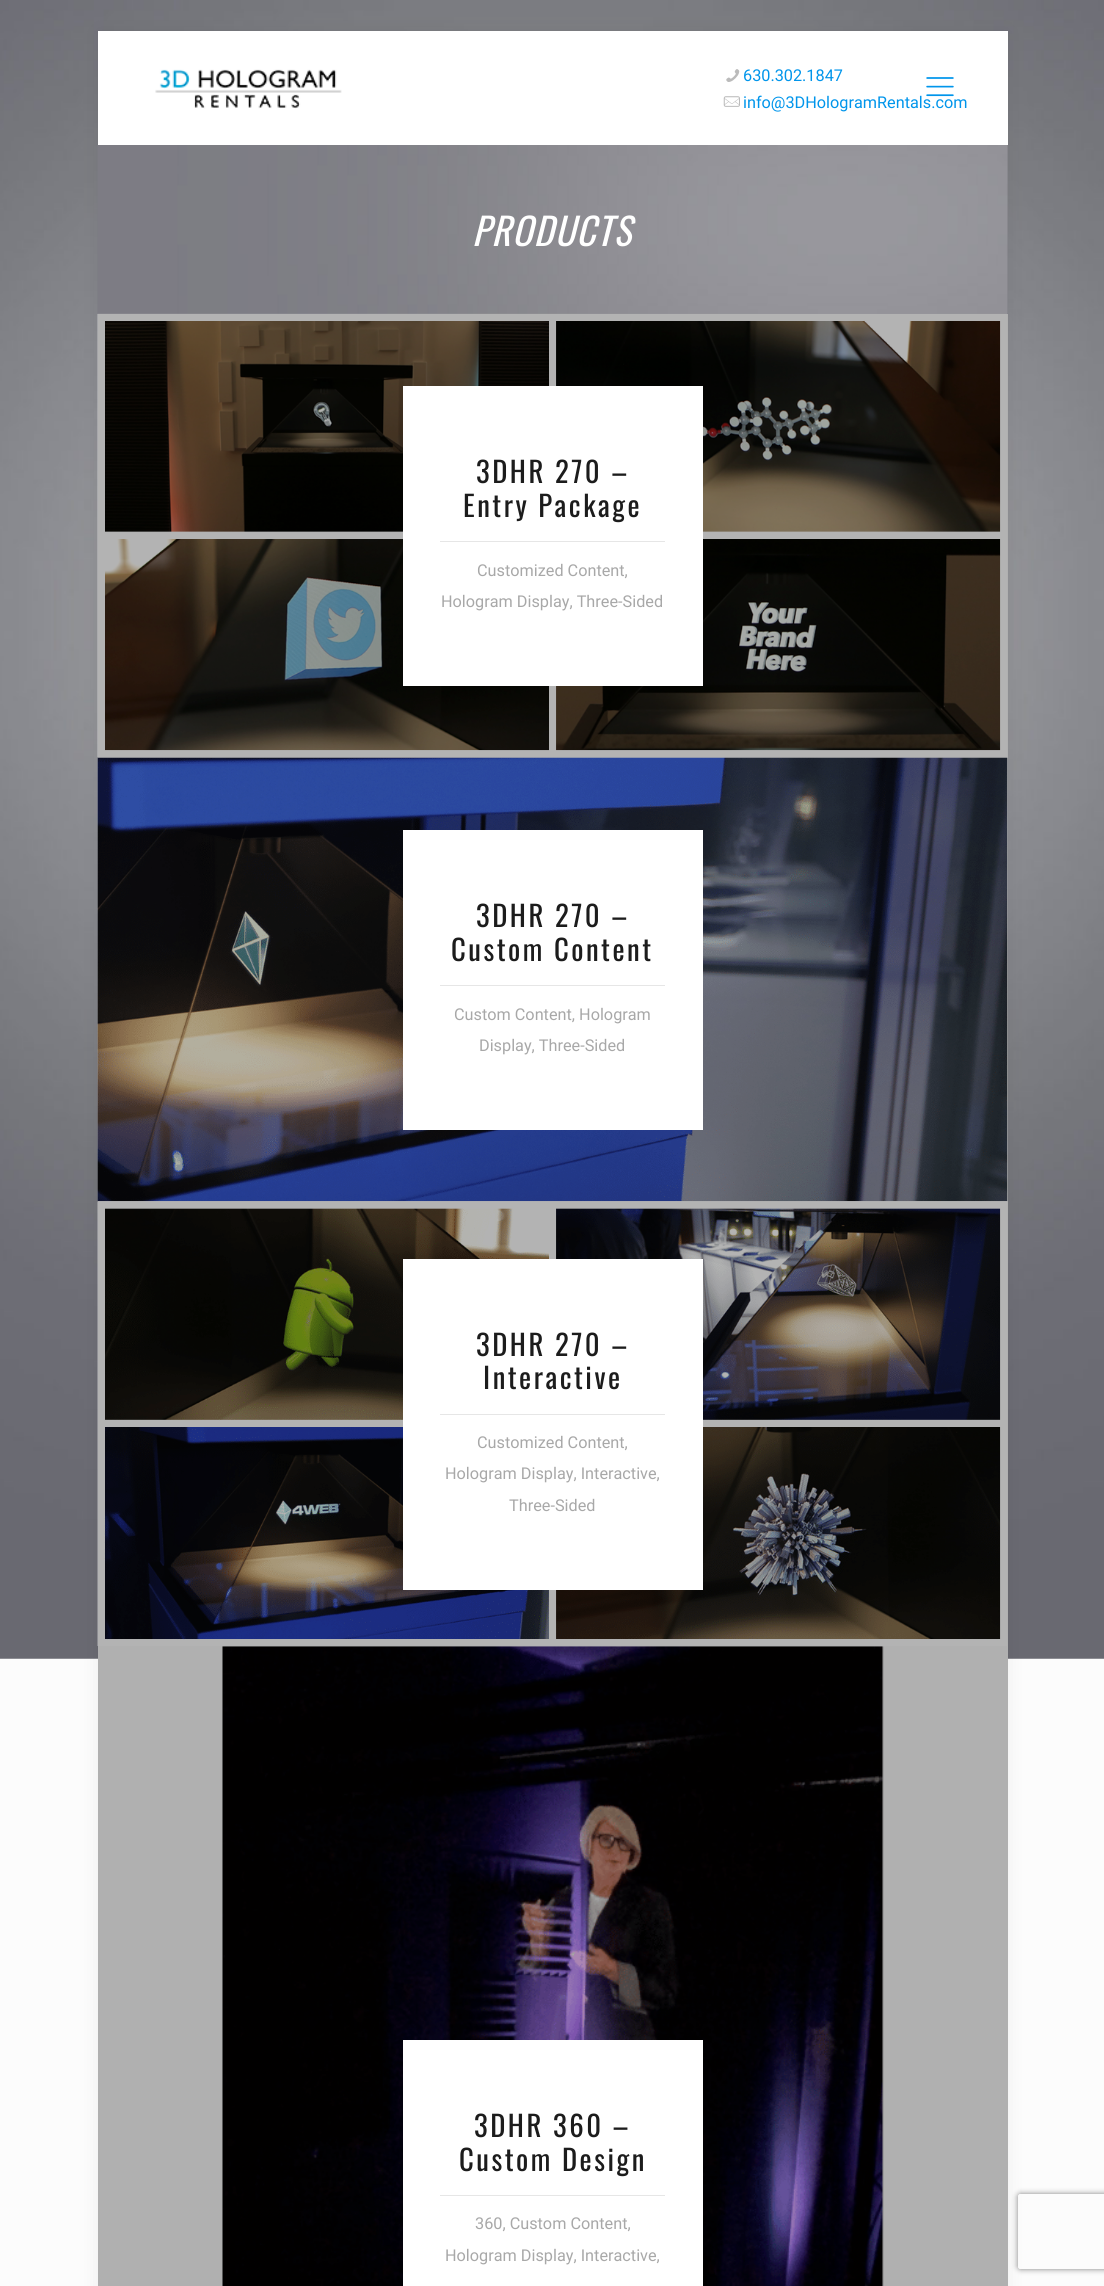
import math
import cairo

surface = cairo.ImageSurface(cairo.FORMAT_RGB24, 1104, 2286)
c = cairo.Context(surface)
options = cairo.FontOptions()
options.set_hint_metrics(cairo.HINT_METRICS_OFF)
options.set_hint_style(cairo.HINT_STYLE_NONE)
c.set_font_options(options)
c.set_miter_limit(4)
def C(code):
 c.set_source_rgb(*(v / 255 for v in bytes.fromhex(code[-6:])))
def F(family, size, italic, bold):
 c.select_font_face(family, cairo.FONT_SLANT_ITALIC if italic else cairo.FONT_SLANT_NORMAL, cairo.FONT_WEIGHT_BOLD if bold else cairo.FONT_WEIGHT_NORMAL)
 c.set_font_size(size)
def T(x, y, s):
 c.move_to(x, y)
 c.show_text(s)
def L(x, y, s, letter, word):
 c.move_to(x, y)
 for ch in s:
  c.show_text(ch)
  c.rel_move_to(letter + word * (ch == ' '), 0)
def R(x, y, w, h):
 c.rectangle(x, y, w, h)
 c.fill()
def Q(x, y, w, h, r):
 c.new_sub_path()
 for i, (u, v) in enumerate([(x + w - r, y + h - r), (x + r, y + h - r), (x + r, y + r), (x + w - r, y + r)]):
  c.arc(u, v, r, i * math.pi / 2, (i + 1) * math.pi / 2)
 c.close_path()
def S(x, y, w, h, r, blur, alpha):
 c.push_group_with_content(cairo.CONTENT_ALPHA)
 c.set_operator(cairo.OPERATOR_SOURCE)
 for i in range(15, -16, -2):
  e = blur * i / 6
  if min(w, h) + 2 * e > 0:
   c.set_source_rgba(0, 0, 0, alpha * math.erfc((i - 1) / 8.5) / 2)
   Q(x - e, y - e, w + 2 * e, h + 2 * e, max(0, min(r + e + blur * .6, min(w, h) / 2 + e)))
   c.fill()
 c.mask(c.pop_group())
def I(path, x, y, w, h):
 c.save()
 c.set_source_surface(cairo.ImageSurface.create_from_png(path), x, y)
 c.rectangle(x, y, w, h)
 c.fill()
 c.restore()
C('fcfcfc')
c.paint()
I('1.png',0,0,1104,1659)
C('000000')
S(98,31,910,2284,0,9.5,.06)
C('fbfbfb')
R(98,314,910,1972)
C('ffffff')
R(98,31,910,114)
I('2.png',155,69,187,40)
F('Roboto',16.25,0,0)
C('0095eb')
T(743,108,'info@3DHologramRentals.com')
I('3.png',926,77,28,20)
I('4.png',726,69,14,13)
T(743,81,'630.302.1847')
I('5.png',723,96,17,11)
C('7c7c83')
R(98,145,910,169)
I('6.png',97,145,911,169)
F('Oswald',37.5,1,0)
C('ffffff')
L(472,246,'PRODUCTS',1.25,0)
I('7.png',97,313,910,445)
I('8.png',97,757,911,445)
c.set_source_rgba(0,0,0,0.3)
R(98,314,910,444)
C('ffffff')
R(403,386,300,300)
C('e6e6e6')
R(440,541,225,1)
F('Oswald',28.75,0,0)
C('1c1c1c')
L(476,483,'3DHR 270 –',2.5,0)
L(463,517,'Entry Package',2.5,0)
F('Roboto',16.25,0,0)
C('a8a8a8')
T(477,576,'Customized Content,')
T(441,607,'Hologram Display, Three-Sided')
c.set_source_rgba(0,0,0,0.3)
R(98,758,910,443)
C('ffffff')
R(403,830,300,300)
C('e6e6e6')
R(440,985,225,1)
F('Oswald',28.75,0,0)
C('1c1c1c')
L(476,927,'3DHR 270 –',2.5,0)
L(451,961,'Custom Content',2.5,0)
F('Roboto',16.25,0,0)
C('a8a8a8')
T(454,1020,'Custom Content, Hologram')
T(479,1051,'Display, Three-Sided')
I('9.png',97,1201,910,445)
c.set_source_rgba(0,0,0,0.3)
R(98,1201,910,445)
C('ffffff')
R(403,1259,300,331)
C('e6e6e6')
R(440,1414,225,1)
F('Oswald',28.75,0,0)
C('1c1c1c')
L(476,1356,'3DHR 270 –',2.5,0)
L(483,1389,'Interactive',2.5,0)
F('Roboto',16.25,0,0)
C('a8a8a8')
T(477,1448,'Customized Content,')
T(445,1479,'Hologram Display, Interactive,')
T(509,1511,'Three-Sided')
I('10.png',222,1646,662,640)
c.set_source_rgba(0,0,0,0.3)
R(98,1646,910,640)
C('ffffff')
R(403,2040,300,246)
C('e6e6e6')
R(440,2195,225,1)
F('Oswald',28.75,0,0)
C('1c1c1c')
L(474,2137,'3DHR 360 –',2.5,0)
L(459,2171,'Custom Design',2.5,0)
F('Roboto',16.25,0,0)
C('a8a8a8')
T(475,2229,'360, Custom Content,')
T(445,2261,'Hologram Display, Interactive,')
c.save()
c.set_fill_rule(cairo.FILL_RULE_EVEN_ODD)
c.new_path()
c.move_to(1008,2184)
c.line_to(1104,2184)
c.line_to(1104,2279)
c.line_to(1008,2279)
c.close_path()
c.move_to(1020.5,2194)
c.line_to(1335.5,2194)
c.curve_to(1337,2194,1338,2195,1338,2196.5)
c.line_to(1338,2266.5)
c.curve_to(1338,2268,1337,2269,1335.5,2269)
c.line_to(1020.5,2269)
c.curve_to(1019,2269,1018,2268,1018,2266.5)
c.line_to(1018,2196.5)
c.curve_to(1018,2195,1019,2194,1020.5,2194)
c.close_path()
c.clip()
C('808080')
S(1018,2194,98,75,2.5,3,1)
c.restore()
surface.write_to_png('o.png')
